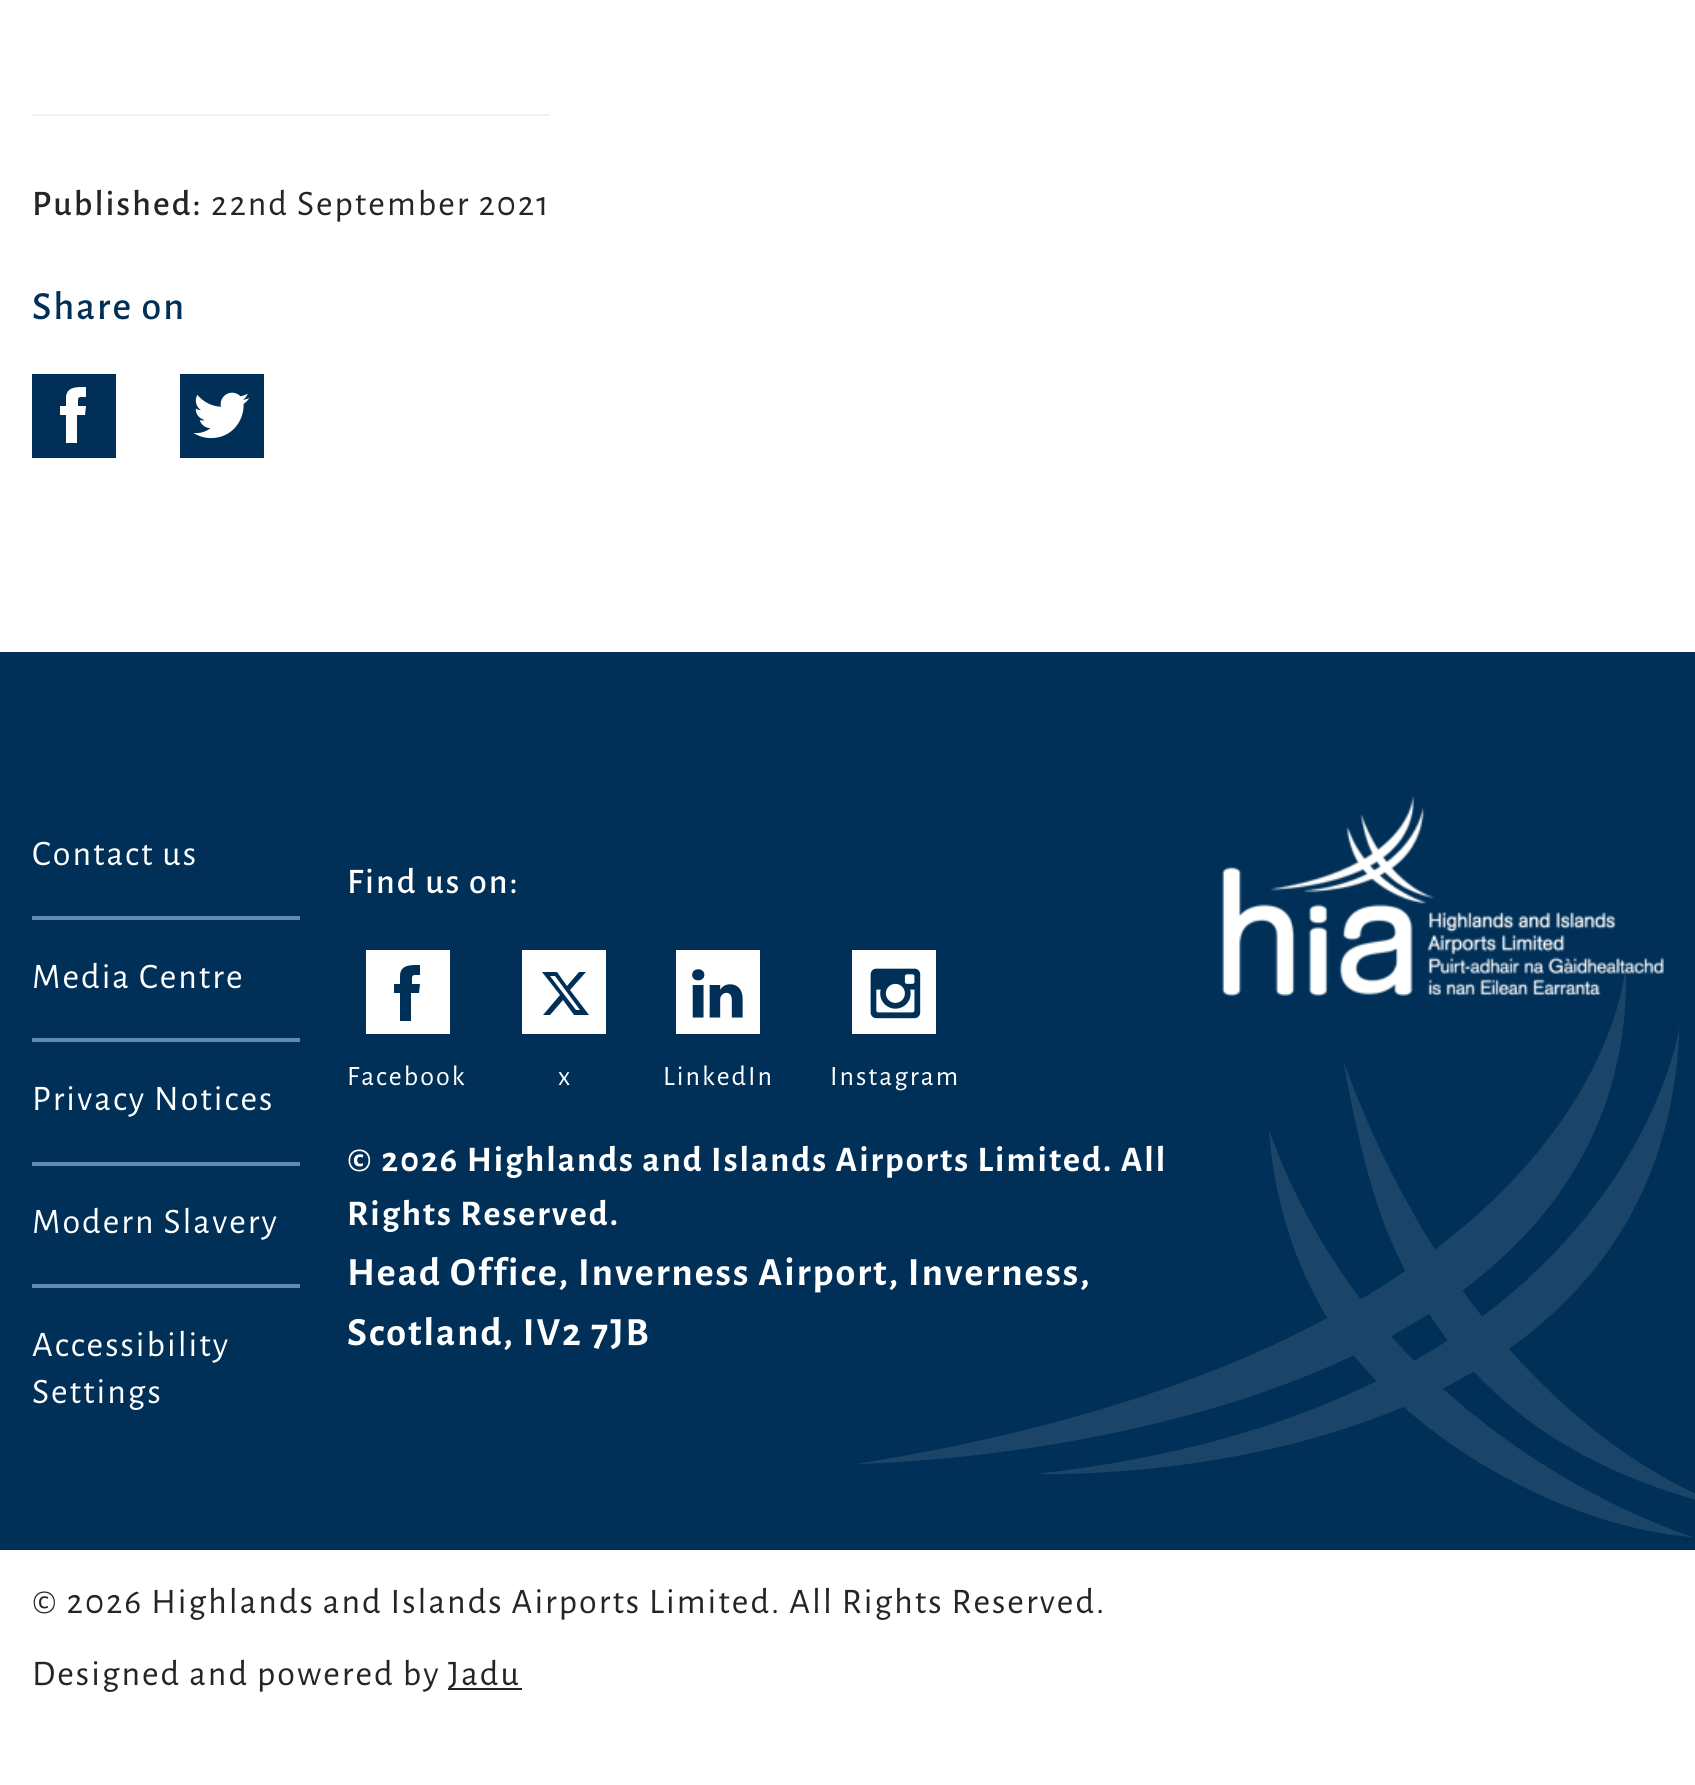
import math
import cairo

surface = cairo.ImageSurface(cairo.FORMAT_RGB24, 1695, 1785)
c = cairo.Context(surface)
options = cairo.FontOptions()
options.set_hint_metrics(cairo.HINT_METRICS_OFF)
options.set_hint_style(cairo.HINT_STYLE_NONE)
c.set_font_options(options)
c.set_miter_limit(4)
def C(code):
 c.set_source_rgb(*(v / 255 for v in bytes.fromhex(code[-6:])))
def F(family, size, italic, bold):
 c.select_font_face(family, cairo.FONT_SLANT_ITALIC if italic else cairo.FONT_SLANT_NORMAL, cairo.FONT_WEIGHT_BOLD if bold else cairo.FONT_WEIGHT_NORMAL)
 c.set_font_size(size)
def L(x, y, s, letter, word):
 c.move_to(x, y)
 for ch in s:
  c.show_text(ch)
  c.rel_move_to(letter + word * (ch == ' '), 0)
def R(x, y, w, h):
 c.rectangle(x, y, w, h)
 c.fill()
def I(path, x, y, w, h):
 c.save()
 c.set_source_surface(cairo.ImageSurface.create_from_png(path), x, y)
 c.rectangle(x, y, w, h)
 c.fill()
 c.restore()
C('ffffff')
c.paint()
C('f4f1ed')
R(32,114,518,2)
F('Alegreya Sans Medium',36,0,0)
C('232628')
L(32,215,'Published:',2,0)
F('Alegreya Sans',36,0,0)
L(211,215,'22nd September 2021',2,0)
F('Alegreya Sans Medium',40,0,0)
C('003057')
L(32,319,'Share on',2,0)
R(32,374,84,84)
C('ffffff')
c.new_path()
c.move_to(66,398)
c.line_to(66,406)
c.line_to(60,406)
c.line_to(60,415)
c.line_to(66,415)
c.line_to(66,443)
c.line_to(77,443)
c.line_to(77,415)
c.line_to(85,415)
c.line_to(86,406)
c.line_to(78,406)
c.curve_to(78,396,77,397,86,397)
c.line_to(86,387)
c.curve_to(78,387,66,386,66,398)
c.close_path()
c.fill()
C('003057')
R(180,374,84,84)
I('1.png',193,392,57,47)
R(0,652,1695,898)
C('5e8ab4')
R(32,916,268,4)
F('Alegreya Sans',36,0,0)
C('ffffff')
L(32,865,'Contact us',2,0)
C('5e8ab4')
R(32,1038,268,4)
C('ffffff')
L(32,988,'Media Centre',2,0)
C('5e8ab4')
R(32,1162,268,4)
C('ffffff')
L(32,1110,'Privacy Notices',2,0)
C('5e8ab4')
R(32,1284,268,4)
C('ffffff')
L(32,1233,'Modern Slavery',2,0)
L(32,1356,'Accessibility',2,0)
L(32,1403,'Settings',2,0)
F('Alegreya Sans Medium',36,0,0)
L(347,893,'Find us on:',2,0)
R(366,950,84,84)
C('003057')
c.new_path()
c.move_to(400,976)
c.line_to(400,984)
c.line_to(394,984)
c.line_to(394,993)
c.line_to(400,993)
c.line_to(400,1021)
c.line_to(411,1021)
c.line_to(411,993)
c.line_to(419,993)
c.line_to(420,984)
c.line_to(412,984)
c.curve_to(412,974,411,975,420,975)
c.line_to(420,965)
c.curve_to(412,965,400,964,400,976)
c.close_path()
c.fill()
F('Alegreya Sans',28,0,0)
C('ffffff')
L(347,1085,'Facebook',2,0)
R(522,950,84,84)
C('003057')
c.set_fill_rule(cairo.FILL_RULE_EVEN_ODD)
c.new_path()
c.move_to(595,964)
c.line_to(595,1023)
c.line_to(536,1023)
c.line_to(536,964)
c.line_to(536,1023)
c.line_to(595,1023)
c.close_path()
c.move_to(579,972)
c.line_to(586,972)
c.line_to(570,990)
c.line_to(589,1015)
c.line_to(574,1015)
c.line_to(563,1000)
c.line_to(550,1015)
c.line_to(543,1015)
c.line_to(560,995)
c.line_to(542,972)
c.line_to(557,972)
c.line_to(567,986)
c.close_path()
c.move_to(576,1010)
c.line_to(580,1010)
c.line_to(555,976)
c.line_to(550,976)
c.close_path()
c.fill()
C('ffffff')
L(558,1085,'x',2,0)
R(676,950,84,84)
I('2.png',692,969,51,49)
L(663,1085,'LinkedIn',2,0)
F('Alegreya Sans',36,0,1)
L(347,1171,'© 2026 Highlands and Islands Airports Limited. All',2,0)
F('Alegreya Sans',40,0,1)
L(347,1285,'Head Office, Inverness Airport, Inverness,',2,0)
I('5.png',858,966,837,571)
R(852,950,84,84)
I('3.png',870,968,51,51)
F('Alegreya Sans',28,0,0)
L(830,1085,'Instagram',2,0)
F('Alegreya Sans',36,0,1)
L(347,1225,'Rights Reserved.',2,0)
F('Alegreya Sans',40,0,1)
L(347,1345,'Scotland, IV2 7JB',2,0)
I('4.png',1222,796,442,200)
F('Alegreya Sans',36,0,0)
C('232628')
L(32,1613,'© 2026 Highlands and Islands Airports Limited. All Rights Reserved.',2,0)
L(32,1685,'Designed and powered by',2,0)
R(448,1688,74,2)
L(448,1685,'Jadu',2,0)
surface.write_to_png('o.png')
